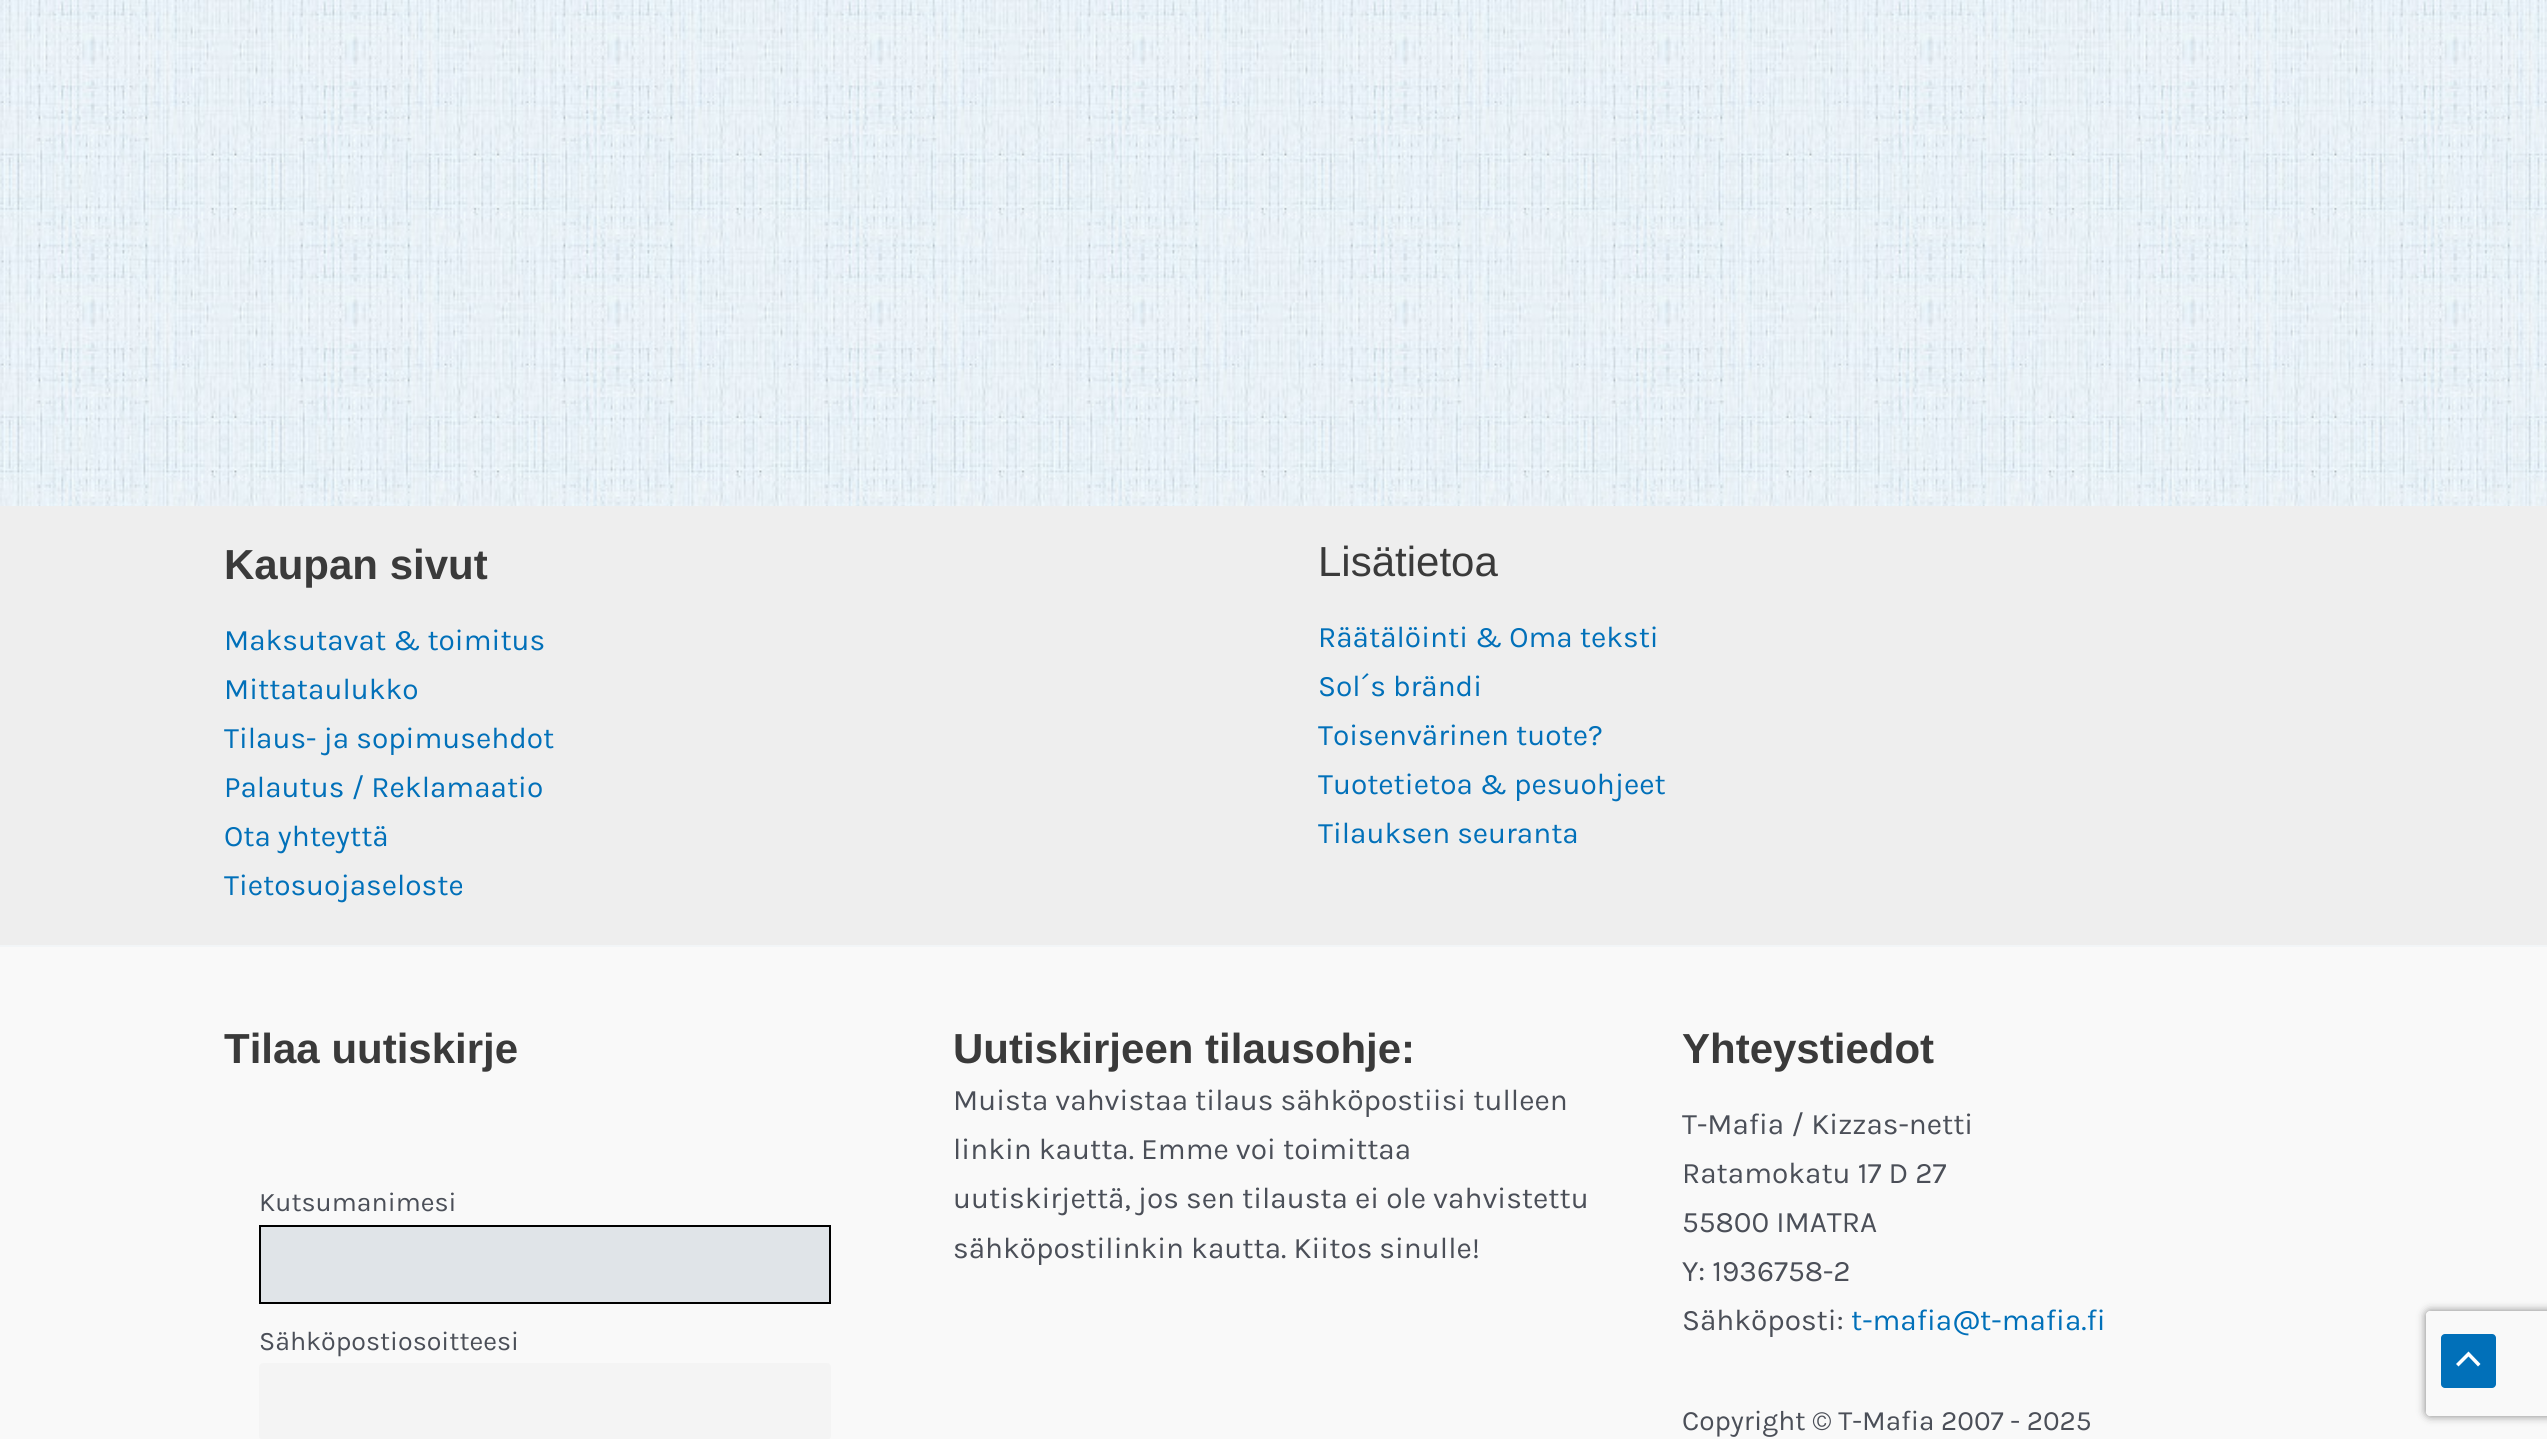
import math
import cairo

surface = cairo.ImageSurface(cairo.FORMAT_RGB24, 2547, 1439)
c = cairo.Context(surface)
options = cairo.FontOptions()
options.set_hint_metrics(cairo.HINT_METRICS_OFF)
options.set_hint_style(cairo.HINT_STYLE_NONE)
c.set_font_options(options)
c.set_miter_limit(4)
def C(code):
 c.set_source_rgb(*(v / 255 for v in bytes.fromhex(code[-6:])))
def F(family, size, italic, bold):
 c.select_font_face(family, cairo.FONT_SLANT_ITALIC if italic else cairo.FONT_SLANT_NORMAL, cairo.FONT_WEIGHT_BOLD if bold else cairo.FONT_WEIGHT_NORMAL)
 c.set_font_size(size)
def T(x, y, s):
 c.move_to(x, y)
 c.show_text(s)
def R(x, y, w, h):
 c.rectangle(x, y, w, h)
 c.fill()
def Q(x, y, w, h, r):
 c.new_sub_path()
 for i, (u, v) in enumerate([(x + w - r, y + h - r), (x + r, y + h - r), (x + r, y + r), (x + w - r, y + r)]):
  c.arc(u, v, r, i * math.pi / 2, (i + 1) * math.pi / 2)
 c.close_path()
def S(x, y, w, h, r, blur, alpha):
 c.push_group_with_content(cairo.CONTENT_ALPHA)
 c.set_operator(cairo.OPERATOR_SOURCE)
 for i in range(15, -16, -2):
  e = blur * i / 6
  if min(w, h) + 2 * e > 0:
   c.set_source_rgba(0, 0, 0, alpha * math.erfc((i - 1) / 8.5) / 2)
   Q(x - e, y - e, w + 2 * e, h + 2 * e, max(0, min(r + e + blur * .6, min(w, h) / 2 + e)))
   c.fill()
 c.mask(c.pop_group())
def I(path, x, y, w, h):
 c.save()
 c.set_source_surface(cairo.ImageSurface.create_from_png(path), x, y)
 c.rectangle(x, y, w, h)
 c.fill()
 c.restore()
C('ffffff')
c.paint()
I('1.png',0,0,2547,506)
C('eeeeee')
R(0,506,2547,439)
F('Liberation Sans',42,0,1)
C('3a3a3a')
T(224,579,'Kaupan sivut')
F('Karla',29.75,0,0)
C('0170b9')
T(224,650,'Maksutavat & toimitus')
T(224,699,'Mittataulukko')
T(224,748,'Tilaus- ja sopimusehdot')
T(224,797,'Palautus / Reklamaatio')
T(224,846,'Ota yhteyttä')
T(224,895,'Tietosuojaseloste')
F('Liberation Sans',42,0,0)
C('3a3a3a')
T(1318,576,'Lisätietoa')
F('Karla',29.75,0,0)
C('0170b9')
T(1318,647,'Räätälöinti & Oma teksti')
T(1318,696,'Sol´s brändi')
T(1318,745,'Toisenvärinen tuote?')
T(1318,794,'Tuotetietoa & pesuohjeet')
T(1318,843,'Tilauksen seuranta')
C('f9f9f9')
R(0,947,2547,492)
C('f2f5f7')
R(0,945,2547,2)
F('Liberation Sans',42,0,1)
C('3a3a3a')
T(224,1063,'Tilaa uutiskirje')
F('Karla',26.75,0,0)
C('4b4f58')
T(259,1211,'Kutsumanimesi')
C('e0e4e8')
c.rectangle(260,1226,570,77)
c.fill_preserve()
C('000000')
c.stroke()
C('4b4f58')
T(259,1350,'Sähköpostiosoitteesi')
C('f4f4f4')
Q(259,1363,572,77,4)
c.fill()
F('Liberation Sans',42,0,1)
C('3a3a3a')
T(953,1063,'Uutiskirjeen tilausohje:')
F('Karla',29.75,0,0)
C('4b4f58')
T(953,1110,'Muista vahvistaa tilaus sähköpostiisi tulleen')
T(953,1159,'linkin kautta. Emme voi toimittaa')
T(953,1208,'uutiskirjettä, jos sen tilausta ei ole vahvistettu')
T(953,1258,'sähköpostilinkin kautta. Kiitos sinulle!')
F('Liberation Sans',42,0,1)
C('3a3a3a')
T(1682,1063,'Yhteystiedot')
F('Karla',29.75,0,0)
C('4b4f58')
T(1682,1134,'T-Mafia / Kizzas-netti')
T(1682,1183,'Ratamokatu 17 D 27')
T(1682,1232,'55800 IMATRA')
T(1682,1281,'Y: 1936758-2')
T(1682,1330,'Sähköposti:')
C('0170b9')
T(1851,1330,'t-mafia@t-mafia.fi')
F('Karla',28,0,0)
C('4b4f58')
T(1682,1430,'Copyright © T-Mafia 2007 - 2025')
c.save()
c.set_fill_rule(cairo.FILL_RULE_EVEN_ODD)
c.new_path()
c.move_to(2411,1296)
c.line_to(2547,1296)
c.line_to(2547,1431)
c.line_to(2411,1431)
c.close_path()
c.move_to(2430,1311)
c.line_to(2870,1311)
c.curve_to(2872,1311,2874,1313,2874,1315)
c.line_to(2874,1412)
c.curve_to(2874,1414,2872,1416,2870,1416)
c.line_to(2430,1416)
c.curve_to(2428,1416,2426,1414,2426,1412)
c.line_to(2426,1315)
c.curve_to(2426,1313,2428,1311,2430,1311)
c.close_path()
c.clip()
C('808080')
S(2426,1311,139,105,4,4.5,1)
c.restore()
C('0170b9')
Q(2441,1334,55,54,4)
c.fill()
C('ffffff')
c.new_path()
c.move_to(2480.5,1364)
c.line_to(2468.5,1351.5)
c.line_to(2456,1364)
c.line_to(2458.5,1366.5)
c.line_to(2468.5,1356.5)
c.line_to(2478,1366.5)
c.close_path()
c.fill()
surface.write_to_png('o.png')
